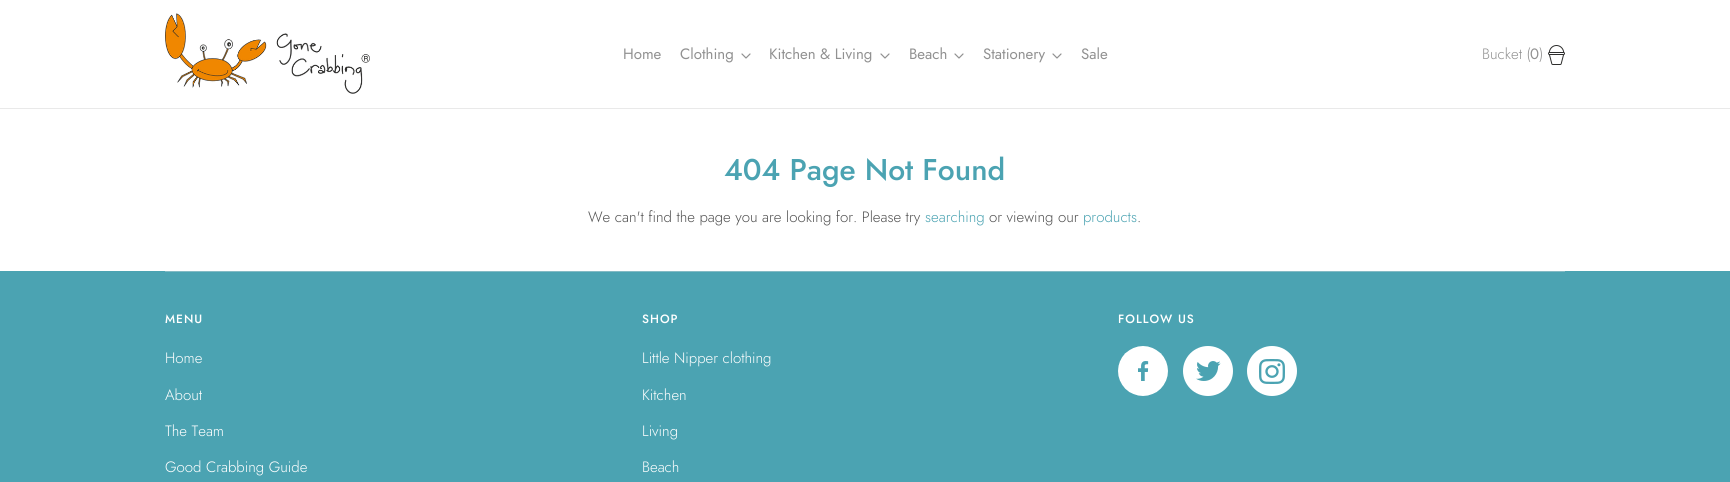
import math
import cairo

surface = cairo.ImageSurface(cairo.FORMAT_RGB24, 1730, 482)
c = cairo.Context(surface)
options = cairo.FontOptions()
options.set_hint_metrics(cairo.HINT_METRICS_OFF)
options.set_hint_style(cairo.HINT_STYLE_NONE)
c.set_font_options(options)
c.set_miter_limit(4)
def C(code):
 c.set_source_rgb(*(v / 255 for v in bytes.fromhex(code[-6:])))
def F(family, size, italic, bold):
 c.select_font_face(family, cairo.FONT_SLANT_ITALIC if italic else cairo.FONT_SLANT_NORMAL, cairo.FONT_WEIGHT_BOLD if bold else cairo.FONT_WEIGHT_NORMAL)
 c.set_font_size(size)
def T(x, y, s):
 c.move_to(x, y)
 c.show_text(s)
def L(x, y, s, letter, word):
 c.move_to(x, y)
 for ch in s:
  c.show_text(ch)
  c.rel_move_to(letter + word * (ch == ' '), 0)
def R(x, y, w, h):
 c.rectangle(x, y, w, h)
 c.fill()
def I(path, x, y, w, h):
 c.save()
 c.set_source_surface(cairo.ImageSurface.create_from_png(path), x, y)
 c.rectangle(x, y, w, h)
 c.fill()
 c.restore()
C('ffffff')
c.paint()
C('e9e9e9')
R(0,108,1730,1)
I('1.png',165,13,205,81)
F('Jost',15,0,0)
C('919191')
T(623,59,'Home')
T(680,59,'Clothing')
c.new_path()
c.move_to(742,54)
c.line_to(746,58)
c.line_to(750,54)
c.set_line_width(1.2)
c.set_line_cap(cairo.LINE_CAP_ROUND)
c.set_line_join(cairo.LINE_JOIN_ROUND)
c.stroke()
T(769,59,'Kitchen & Living')
c.new_path()
c.move_to(881,54)
c.line_to(885,58)
c.line_to(889,54)
c.stroke()
T(909,59,'Beach')
c.new_path()
c.move_to(955,54)
c.line_to(959,58)
c.line_to(963,54)
c.stroke()
T(983,59,'Stationery')
c.new_path()
c.move_to(1053,54)
c.line_to(1057,58)
c.line_to(1061,54)
c.stroke()
T(1081,59,'Sale')
F('Jost Light',15,0,0)
T(1482,59,'Bucket (')
F('Jost',15,0,0)
T(1530,59,'0')
F('Jost Light',15,0,0)
T(1539,59,')')
I('2.png',1548,45,17,20)
F('Jost Medium',30,0,0)
C('4ba3b2')
T(724,180,'404 Page Not Found')
F('Jost Light',15,0,0)
C('525252')
T(588,222,'We can\'t find the page you are looking for. Please try')
C('4ba3b2')
T(925,222,'searching')
C('525252')
T(989,222,'or viewing our')
C('4ba3b2')
T(1083,222,'products')
C('525252')
T(1137,222,'.')
C('4ba3b2')
R(0,271,1730,211)
C('83bac4')
R(165,271,1400,1)
F('Jost Medium',12,0,0)
C('ffffff')
L(165,323,'MENU',1,0)
F('Jost Light',15,0,0)
T(165,363,'Home')
T(165,400,'About')
T(165,436,'The Team')
T(165,472,'Good Crabbing Guide')
F('Jost Medium',12,0,0)
L(642,323,'SHOP',1,0)
F('Jost Light',15,0,0)
T(642,363,'Little Nipper clothing')
T(642,400,'Kitchen')
T(642,436,'Living')
T(642,472,'Beach')
F('Jost Medium',12,0,0)
L(1118,323,'FOLLOW US',1,0)
I('3.png',1118,346,50,50)
I('4.png',1183,346,50,50)
I('5.png',1247,346,50,50)
surface.write_to_png('o.png')
